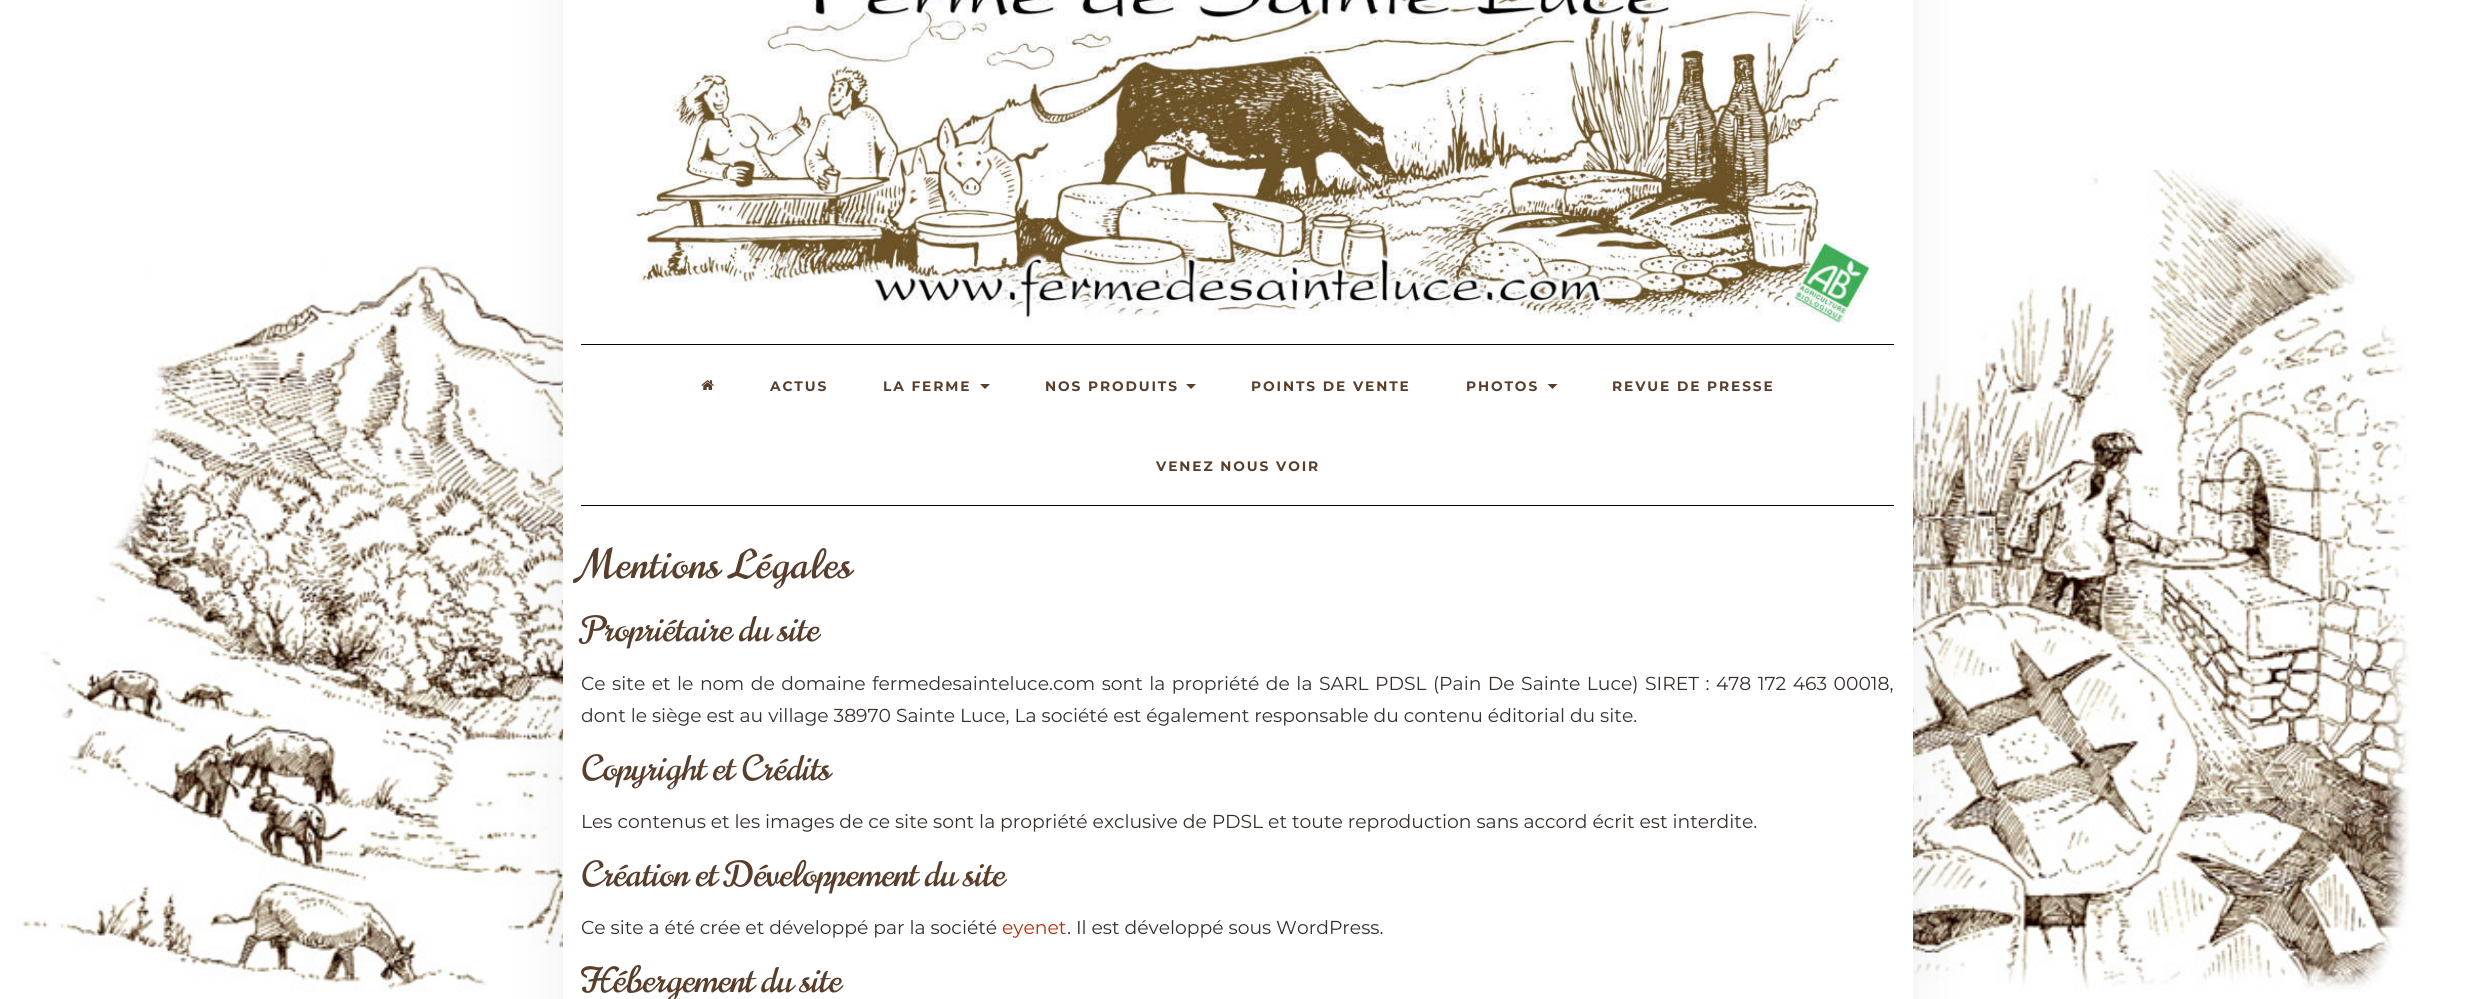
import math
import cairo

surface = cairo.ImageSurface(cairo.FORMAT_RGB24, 2474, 999)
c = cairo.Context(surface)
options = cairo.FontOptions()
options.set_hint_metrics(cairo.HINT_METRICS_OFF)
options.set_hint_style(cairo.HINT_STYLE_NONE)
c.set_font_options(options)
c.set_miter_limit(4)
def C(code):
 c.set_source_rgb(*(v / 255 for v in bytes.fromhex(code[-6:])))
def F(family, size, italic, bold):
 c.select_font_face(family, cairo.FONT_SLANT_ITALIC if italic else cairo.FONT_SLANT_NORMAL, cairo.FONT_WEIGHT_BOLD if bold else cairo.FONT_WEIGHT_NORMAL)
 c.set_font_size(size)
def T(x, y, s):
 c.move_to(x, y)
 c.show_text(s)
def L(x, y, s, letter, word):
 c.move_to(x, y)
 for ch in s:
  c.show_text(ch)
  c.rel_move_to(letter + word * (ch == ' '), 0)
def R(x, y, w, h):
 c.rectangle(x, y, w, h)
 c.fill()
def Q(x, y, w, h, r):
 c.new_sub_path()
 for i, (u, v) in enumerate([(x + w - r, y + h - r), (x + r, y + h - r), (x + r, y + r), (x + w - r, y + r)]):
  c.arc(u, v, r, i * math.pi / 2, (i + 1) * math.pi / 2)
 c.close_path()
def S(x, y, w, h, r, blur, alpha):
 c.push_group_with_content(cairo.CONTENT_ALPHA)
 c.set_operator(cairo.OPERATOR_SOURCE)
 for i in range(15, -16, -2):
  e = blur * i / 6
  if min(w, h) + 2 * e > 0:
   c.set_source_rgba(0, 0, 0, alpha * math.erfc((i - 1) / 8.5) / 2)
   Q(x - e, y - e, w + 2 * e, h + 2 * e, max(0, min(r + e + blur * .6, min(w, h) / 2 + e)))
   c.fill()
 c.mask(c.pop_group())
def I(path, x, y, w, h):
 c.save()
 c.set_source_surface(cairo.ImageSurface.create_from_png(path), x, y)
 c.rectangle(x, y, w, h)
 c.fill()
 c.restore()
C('ffffff')
c.paint()
I('1.png',15,170,2395,828)
C('000000')
S(563,-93,1350,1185,0,31,.06)
C('ffffff')
R(563,0,1350,999)
I('2.png',630,0,1240,324)
C('000000')
R(581,344,1313,1)
R(581,505,1313,1)
I('3.png',701,380,13,10)
F('Montserrat',13.75,0,1)
C('593e2b')
L(770,391,'ACTUS',1.9,0)
L(883,391,'LA FERME',1.9,0)
c.new_path()
c.move_to(980,384)
c.line_to(990,384)
c.line_to(985,389)
c.close_path()
c.fill()
L(1045,391,'NOS PRODUITS',1.9,0)
c.new_path()
c.move_to(1186,384)
c.line_to(1196,384)
c.line_to(1191,389)
c.close_path()
c.fill()
L(1251,391,'POINTS DE VENTE',1.9,0)
L(1466,391,'PHOTOS',1.9,0)
c.new_path()
c.move_to(1547.5,384)
c.line_to(1557.5,384)
c.line_to(1552.5,389)
c.close_path()
c.fill()
L(1612,391,'REVUE DE PRESSE',1.9,0)
L(1156,471,'VENEZ NOUS VOIR',1.9,0)
F('Norican',40,0,0)
L(581,578,'Mentions Légales',1.25,0)
F('Norican',35,0,0)
T(581,641,'Propriétaire du site')
F('Montserrat',18.75,0,0)
C('362f2b')
L(581,690,'Ce site et le nom de domaine fermedesainteluce.com sont la propriété de la SARL PDSL (Pain De Sainte Luce) SIRET : 478 172 463 00018,',0,1.55)
T(581,722,'dont le siège est au village 38970 Sainte Luce, La société est également responsable du contenu éditorial du site.')
F('Norican',35,0,0)
C('593e2b')
T(581,780,'Copyright et Crédits')
F('Montserrat',18.75,0,0)
C('362f2b')
T(581,828,'Les contenus et les images de ce site sont la propriété exclusive de PDSL et toute reproduction sans accord écrit est interdite.')
F('Norican',35,0,0)
C('593e2b')
T(581,886,'Création et Développement du site')
F('Montserrat',18.75,0,0)
C('362f2b')
T(581,934,'Ce site a été crée et développé par la société')
C('af2e07')
T(1002,934,'eyenet')
C('362f2b')
T(1067,934,'. Il est développé sous WordPress.')
F('Norican',35,0,0)
C('593e2b')
T(581,992,'Hébergement du site')
surface.write_to_png('o.png')
